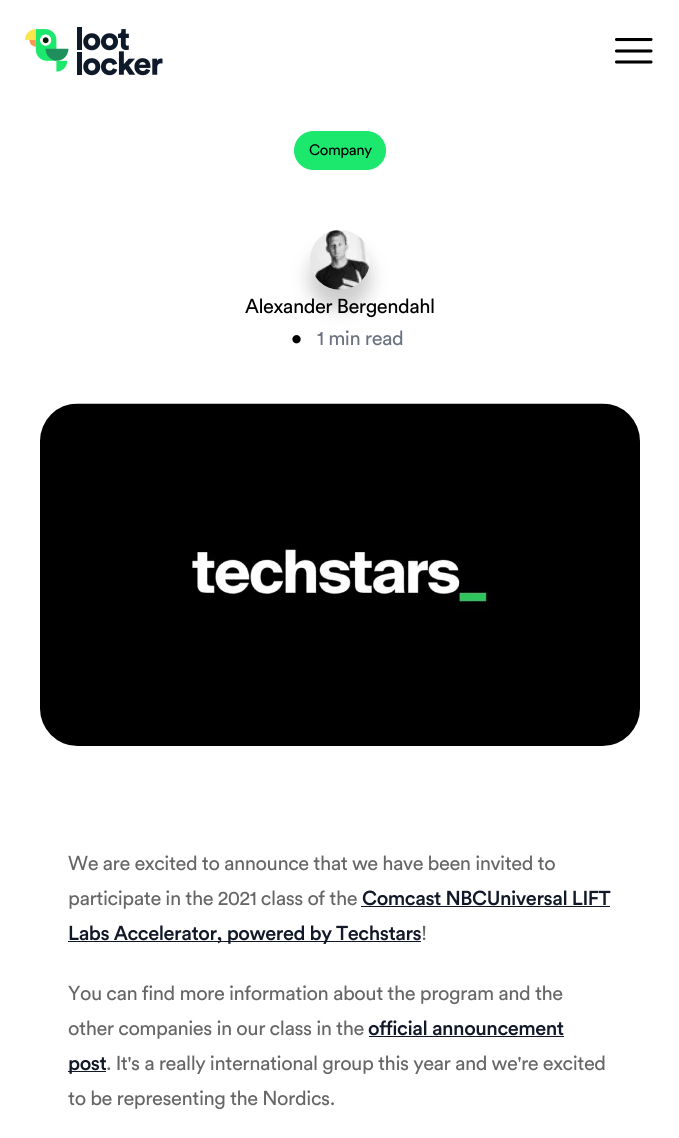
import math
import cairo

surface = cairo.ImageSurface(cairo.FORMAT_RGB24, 679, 1138)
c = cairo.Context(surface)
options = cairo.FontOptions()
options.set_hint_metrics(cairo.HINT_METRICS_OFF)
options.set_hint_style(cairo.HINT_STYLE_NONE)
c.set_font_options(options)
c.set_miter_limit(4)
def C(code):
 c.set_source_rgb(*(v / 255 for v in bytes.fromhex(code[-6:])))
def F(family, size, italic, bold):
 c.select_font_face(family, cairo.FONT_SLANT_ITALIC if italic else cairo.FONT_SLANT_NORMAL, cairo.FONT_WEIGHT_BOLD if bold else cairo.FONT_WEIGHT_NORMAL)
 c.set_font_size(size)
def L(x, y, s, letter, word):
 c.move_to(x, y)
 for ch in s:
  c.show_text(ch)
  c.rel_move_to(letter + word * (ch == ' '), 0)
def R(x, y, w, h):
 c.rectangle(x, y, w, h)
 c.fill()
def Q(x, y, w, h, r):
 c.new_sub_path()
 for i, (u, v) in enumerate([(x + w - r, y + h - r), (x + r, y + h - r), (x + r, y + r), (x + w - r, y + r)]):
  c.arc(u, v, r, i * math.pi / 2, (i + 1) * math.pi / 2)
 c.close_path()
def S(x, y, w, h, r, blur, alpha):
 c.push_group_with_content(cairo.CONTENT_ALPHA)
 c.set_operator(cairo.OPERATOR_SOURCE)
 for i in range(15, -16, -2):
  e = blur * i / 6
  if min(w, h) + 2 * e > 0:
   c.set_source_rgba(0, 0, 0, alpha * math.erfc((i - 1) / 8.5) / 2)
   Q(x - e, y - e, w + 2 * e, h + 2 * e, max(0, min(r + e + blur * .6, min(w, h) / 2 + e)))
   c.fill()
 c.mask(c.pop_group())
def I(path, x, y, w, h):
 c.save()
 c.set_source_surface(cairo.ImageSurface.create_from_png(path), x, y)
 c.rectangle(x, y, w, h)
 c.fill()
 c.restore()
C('ffffff')
c.paint()
I('1.png',25,27,138,49)
c.save()
c.rectangle(615,38,38,26)
c.clip()
c.new_path()
c.move_to(616.5,39.5)
c.line_to(651,39.5)
C('000000')
c.set_line_width(3.1)
c.set_line_cap(cairo.LINE_CAP_ROUND)
c.stroke()
c.restore()
c.new_path()
c.move_to(616.5,51)
c.line_to(651,51)
c.move_to(616.5,62)
c.line_to(651,62)
C('000000')
c.set_line_width(3.1)
c.set_line_cap(cairo.LINE_CAP_ROUND)
c.stroke()
C('1ce86d')
Q(294,131,92,39,19.5)
c.fill()
F('Circular',15,0,0)
C('000000')
L(309,155,'Company',-.45,0)
C('000000')
S(310,248,60,60,30,9,.2)
I('2.png',310,230,60,60)
F('Circular',20,0,0)
C('000000')
L(245,313,'Alexander Bergendahl',-.45,0)
L(291,345,'•',-.45,0)
C('6b7280')
L(317,345,'1 min read',-.45,0)
I('3.png',40,403,600,343)
C('666666')
L(68,870,'We are excited to announce that we have been invited to',-.45,0)
L(68,905,'participate in the 2021 class of the',-.45,0)
F('Circular Medium',20,0,0)
C('111827')
L(362,905,'Comcast NBCUniversal LIFT',-.45,0)
R(361,906,249,1)
R(68,941,353,1)
L(68,940,'Labs Accelerator, powered by Techstars',-.45,0)
F('Circular',20,0,0)
C('666666')
L(421,940,'!',-.45,0)
L(68,1000,'You can find more information about the program and the',-.45,0)
L(68,1035,'other companies in our class in the',-.45,0)
F('Circular Medium',20,0,0)
C('111827')
L(368,1035,'official announcement',-.45,0)
R(369,1036,195,1)
R(68,1071,38,1)
L(68,1070,'post',-.45,0)
F('Circular',20,0,0)
C('666666')
L(106,1070,'. It\'s a really international group this year and we\'re excited',-.45,0)
L(68,1105,'to be representing the Nordics.',-.45,0)
surface.write_to_png('o.png')
